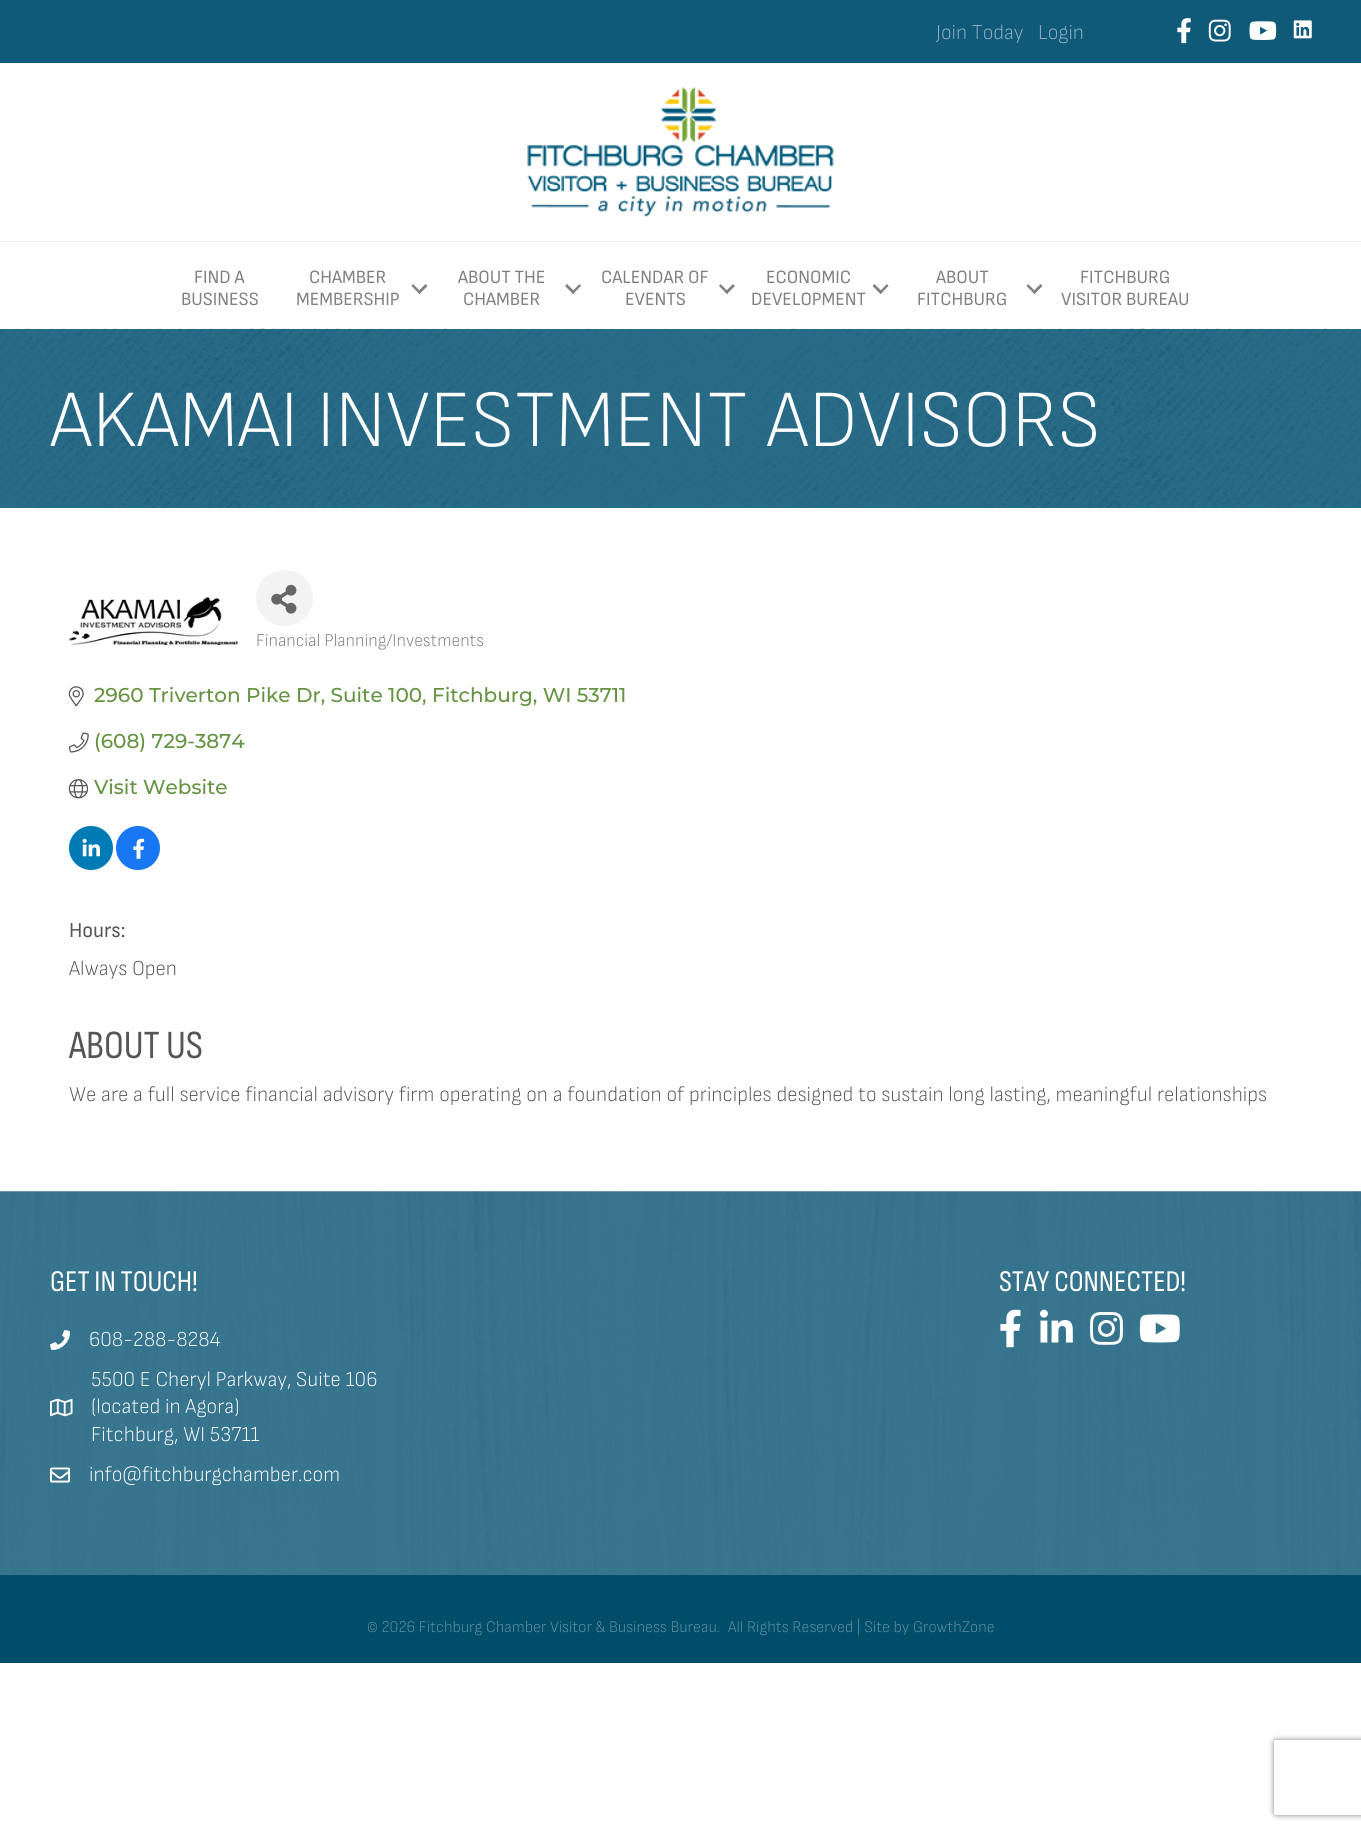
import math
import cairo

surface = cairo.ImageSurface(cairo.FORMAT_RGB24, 1361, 1832)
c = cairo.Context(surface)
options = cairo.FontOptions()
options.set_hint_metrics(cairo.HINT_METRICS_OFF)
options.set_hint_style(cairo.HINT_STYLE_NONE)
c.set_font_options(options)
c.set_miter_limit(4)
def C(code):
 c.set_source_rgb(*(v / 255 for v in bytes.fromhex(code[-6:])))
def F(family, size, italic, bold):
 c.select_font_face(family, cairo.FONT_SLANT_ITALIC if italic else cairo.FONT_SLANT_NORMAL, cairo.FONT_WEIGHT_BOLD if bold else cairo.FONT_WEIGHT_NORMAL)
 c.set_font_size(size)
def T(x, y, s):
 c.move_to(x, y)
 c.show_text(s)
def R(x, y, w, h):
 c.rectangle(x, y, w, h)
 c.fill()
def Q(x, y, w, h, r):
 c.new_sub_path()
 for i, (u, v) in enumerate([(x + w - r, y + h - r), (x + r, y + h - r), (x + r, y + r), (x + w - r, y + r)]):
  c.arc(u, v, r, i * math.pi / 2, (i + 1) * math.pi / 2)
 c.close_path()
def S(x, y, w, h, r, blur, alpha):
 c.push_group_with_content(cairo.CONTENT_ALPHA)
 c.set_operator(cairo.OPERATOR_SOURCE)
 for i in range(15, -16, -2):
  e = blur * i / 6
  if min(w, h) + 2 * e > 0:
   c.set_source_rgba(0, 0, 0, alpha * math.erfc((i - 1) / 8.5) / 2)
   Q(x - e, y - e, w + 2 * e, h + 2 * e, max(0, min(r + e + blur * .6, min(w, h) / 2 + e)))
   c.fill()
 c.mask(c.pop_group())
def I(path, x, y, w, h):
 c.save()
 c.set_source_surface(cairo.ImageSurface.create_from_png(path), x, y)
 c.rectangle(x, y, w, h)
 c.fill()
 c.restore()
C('ffffff')
c.paint()
C('2a6c88')
R(0,507,1361,1)
C('105a79')
R(0,0,1361,63)
F('Sofia Sans Semi Condensed Light',21.25,0,0)
C('95afc4')
T(936,39,'Join Today')
T(1038,39,'Login')
I('1.png',1177,18,14,26)
I('2.png',1208,19,23,23)
I('3.png',1249,21,28,19)
I('4.png',1293,20,19,19)
I('5.png',527,87,307,130)
C('eeeeee')
R(0,241,1361,1)
F('Sofia Sans Semi Condensed',18.75,0,0)
C('808080')
T(194,283,'FIND A')
T(181,305,'BUSINESS')
T(309,283,'CHAMBER')
T(296,305,'MEMBERSHIP')
c.new_path()
c.move_to(425.5,284)
c.line_to(427.5,286)
c.line_to(419.5,294)
c.line_to(417.5,292)
c.close_path()
c.fill()
c.new_path()
c.move_to(413,284)
c.line_to(421,292)
c.line_to(419.5,294)
c.line_to(411.5,286)
c.close_path()
c.fill()
T(458,283,'ABOUT THE')
T(463,305,'CHAMBER')
c.new_path()
c.move_to(579.5,284)
c.line_to(581,286)
c.line_to(573,294)
c.line_to(571.5,292)
c.close_path()
c.fill()
c.new_path()
c.move_to(567,284)
c.line_to(575,292)
c.line_to(573,294)
c.line_to(565,286)
c.close_path()
c.fill()
T(601,283,'CALENDAR OF')
T(625,305,'EVENTS')
c.new_path()
c.move_to(733,284)
c.line_to(735,286)
c.line_to(727,294)
c.line_to(725,292)
c.close_path()
c.fill()
c.new_path()
c.move_to(720.5,284)
c.line_to(728.5,292)
c.line_to(727,294)
c.line_to(719,286)
c.close_path()
c.fill()
T(766,283,'ECONOMIC')
T(751,305,'DEVELOPMENT')
c.new_path()
c.move_to(887,284)
c.line_to(888.5,286)
c.line_to(880.5,294)
c.line_to(879,292)
c.close_path()
c.fill()
c.new_path()
c.move_to(874.5,284)
c.line_to(882.5,292)
c.line_to(880.5,294)
c.line_to(872.5,286)
c.close_path()
c.fill()
T(936,283,'ABOUT')
T(917,305,'FITCHBURG')
c.new_path()
c.move_to(1040.5,284)
c.line_to(1042.5,286)
c.line_to(1034.5,294)
c.line_to(1032.5,292)
c.close_path()
c.fill()
c.new_path()
c.move_to(1028,284)
c.line_to(1036,292)
c.line_to(1034.5,294)
c.line_to(1026.5,286)
c.close_path()
c.fill()
T(1080,283,'FITCHBURG')
T(1061,305,'VISITOR BUREAU')
I('6.png',0,328,1361,180)
F('Sofia Sans Semi Condensed Light',81.25,0,0)
C('ffffff')
T(50,446,'AKAMAI INVESTMENT ADVISORS')
I('7.png',68,597,170,48)
C('f3f3f3')
Q(256,570,57,56,28)
c.fill()
I('8.png',271,584,26,30)
F('Sofia Sans Semi Condensed Light',18,0,0)
C('777777')
T(256,646,'Financial Planning/Investments')
I('9.png',68,686,16,21)
F('Montserrat Thin',20,0,0)
C('649341')
T(94,702,'2960 Triverton Pike Dr, Suite 100, Fitchburg, WI 53711')
I('10.png',68,732,21,21)
T(94,748,'(608) 729-3874')
I('11.png',68,779,21,20)
T(94,794,'Visit Website')
C('007bb5')
c.new_path()
c.arc(91,848,22,0,2 * math.pi)
c.fill()
I('12.png',82,838,18,19)
C('1877f2')
c.arc(138,848,22,0,2 * math.pi)
c.fill()
I('13.png',133,838,12,21)
F('Sofia Sans Semi Condensed',21.25,0,0)
C('555555')
T(69,937,'Hours:')
F('Sofia Sans Semi Condensed Light',21.25,0,0)
T(69,975,'Always Open')
F('Sofia Sans Condensed',40,0,0)
T(69,1058,'ABOUT US')
F('Sofia Sans Semi Condensed Light',21.25,0,0)
T(69,1101,'We are a full service financial advisory firm operating on a foundation of principles designed to sustain long lasting, meaningful relationships')
I('14.png',0,1191,1361,384)
F('Sofia Sans Condensed',30,0,0)
C('ffffff')
T(50,1291,'GET IN TOUCH!')
I('15.png',50,1330,20,20)
F('Sofia Sans Semi Condensed Light',21.25,0,0)
T(89,1346,'608-288-8284')
I('16.png',50,1398,23,19)
T(91,1386,'5500 E Cheryl Parkway, Suite 106')
T(91,1413,'(located in Agora)')
T(91,1441,'Fitchburg, WI 53711')
I('17.png',50,1467,20,16)
T(89,1481,'info@fitchburgchamber.com')
F('Sofia Sans Condensed',30,0,0)
T(999,1291,'STAY CONNECTED!')
I('18.png',1000,1309,21,39)
I('19.png',1040,1309,33,34)
I('20.png',1090,1312,33,33)
I('21.png',1139,1314,41,29)
C('004d69')
R(0,1575,1361,88)
F('Sofia Sans Semi Condensed Light',16.25,0,0)
C('6694a5')
T(367,1632,'© 2026 Fitchburg Chamber Visitor & Business Bureau.')
T(728,1632,'All Rights Reserved | Site by GrowthZone')
c.save()
c.set_fill_rule(cairo.FILL_RULE_EVEN_ODD)
c.new_path()
c.move_to(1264,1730)
c.line_to(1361,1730)
c.line_to(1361,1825)
c.line_to(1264,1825)
c.close_path()
c.move_to(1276.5,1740)
c.line_to(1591.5,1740)
c.curve_to(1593,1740,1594,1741,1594,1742.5)
c.line_to(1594,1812.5)
c.curve_to(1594,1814,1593,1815,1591.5,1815)
c.line_to(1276.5,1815)
c.curve_to(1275,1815,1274,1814,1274,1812.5)
c.line_to(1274,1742.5)
c.curve_to(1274,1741,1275,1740,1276.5,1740)
c.close_path()
c.clip()
C('808080')
S(1274,1740,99,75,2.5,3,1)
c.restore()
surface.write_to_png('o.png')
